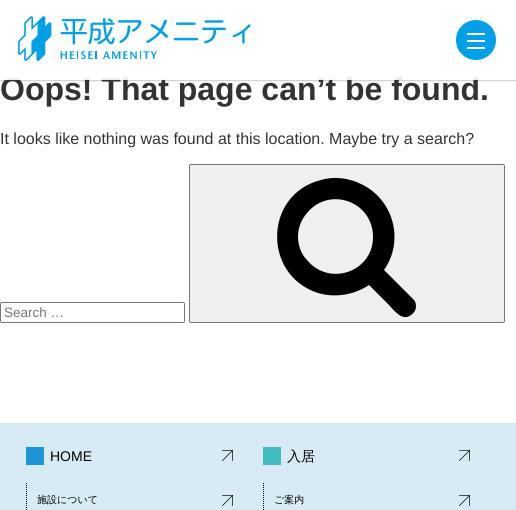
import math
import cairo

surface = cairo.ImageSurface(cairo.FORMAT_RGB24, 516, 510)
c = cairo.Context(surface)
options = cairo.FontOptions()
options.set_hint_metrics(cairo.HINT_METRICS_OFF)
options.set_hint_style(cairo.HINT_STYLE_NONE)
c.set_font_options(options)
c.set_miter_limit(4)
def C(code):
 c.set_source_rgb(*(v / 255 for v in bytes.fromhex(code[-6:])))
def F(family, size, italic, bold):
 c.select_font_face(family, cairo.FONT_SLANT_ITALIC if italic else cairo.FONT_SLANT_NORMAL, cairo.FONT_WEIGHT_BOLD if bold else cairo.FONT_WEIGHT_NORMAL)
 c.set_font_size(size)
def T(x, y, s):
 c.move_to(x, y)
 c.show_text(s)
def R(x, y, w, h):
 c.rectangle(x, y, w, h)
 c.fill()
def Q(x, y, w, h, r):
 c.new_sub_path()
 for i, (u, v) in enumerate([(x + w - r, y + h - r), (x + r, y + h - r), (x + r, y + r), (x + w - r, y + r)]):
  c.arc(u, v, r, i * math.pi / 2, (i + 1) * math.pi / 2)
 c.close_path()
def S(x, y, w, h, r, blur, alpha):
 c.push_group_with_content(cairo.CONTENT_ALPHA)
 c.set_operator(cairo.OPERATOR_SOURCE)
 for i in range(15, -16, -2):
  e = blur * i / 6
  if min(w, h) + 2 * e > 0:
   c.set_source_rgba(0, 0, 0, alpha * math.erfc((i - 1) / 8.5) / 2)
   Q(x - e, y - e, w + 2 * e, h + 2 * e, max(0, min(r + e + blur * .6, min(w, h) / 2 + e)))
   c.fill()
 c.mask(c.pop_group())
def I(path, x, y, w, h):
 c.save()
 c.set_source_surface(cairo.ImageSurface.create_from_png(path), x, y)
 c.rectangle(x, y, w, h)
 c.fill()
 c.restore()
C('ffffff')
c.paint()
c.save()
c.rectangle(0,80,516,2)
c.clip()
C('000000')
S(0,0,516,80,0,1,.5)
c.restore()
I('1.png',18,16,233,45)
C('00a0e9')
c.arc(476,40,20,0,2 * math.pi)
c.fill()
C('ffffff')
R(467,33,18,2)
R(467,40,18,2)
R(467,47,18,2)
F('Liberation Sans',32,0,1)
C('333333')
T(0,100,'Oops! That page can’t be found.')
c.set_source_rgba(1,1,1,0.9)
R(5,76,473,4)
F('Liberation Sans',16,0,0)
C('333333')
T(0,144,'It looks like nothing was found at this location. Maybe try a search?')
Q(.5,302.5,184,20,1.5)
C('767676')
c.set_line_width(1)
c.stroke()
F('Liberation Sans',13.5,0,0)
C('757575')
T(4,317,'Search …')
C('efefef')
Q(189.5,164.5,315,158,1.5)
c.fill_preserve()
C('767676')
c.stroke()
C('000000')
c.new_path()
c.move_to(373,237)
c.curve_to(373,201,329,186,307,213)
c.curve_to(301,220,298,228,298,237)
c.curve_to(298,245,301,254,307,260)
c.curve_to(329,287,373,272,373,237)
c.close_path()
c.move_to(416,306)
c.curve_to(416,310,414,313,411,315)
c.curve_to(402,322,394,310,388,304)
c.line_to(369,285)
c.curve_to(354,295,335,298,318,293)
c.curve_to(262,275,264,194,321,180)
c.curve_to(334,176,349,178,361,184)
c.curve_to(393,199,405,240,384,270)
c.line_to(413,299)
c.curve_to(415,301,416,303,416,306)
c.close_path()
c.fill()
C('d8ebf4')
R(0,423,516,87)
C('1d96d5')
R(26,447,18,18)
I('2.png',222,450,11,11)
F('Liberation Sans',14,0,0)
C('000000')
T(50,461,'HOME')
c.new_path()
c.move_to(26.5,483)
c.line_to(26.5,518)
c.set_dash([1,1])
c.stroke()
I('2.png',222,495,11,11)
F('WenQuanYi Zen Hei Medium',10,0,0)
T(37,503,'施設について')
C('42bbbc')
R(263,447,18,18)
I('2.png',459,450,11,11)
F('WenQuanYi Zen Hei Medium',14,0,0)
C('000000')
T(287,461,'入居')
c.new_path()
c.move_to(263.5,483)
c.line_to(263.5,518)
c.stroke()
I('2.png',459,495,11,11)
F('WenQuanYi Zen Hei Medium',10,0,0)
T(274,503,'ご案内')
surface.write_to_png('o.png')
